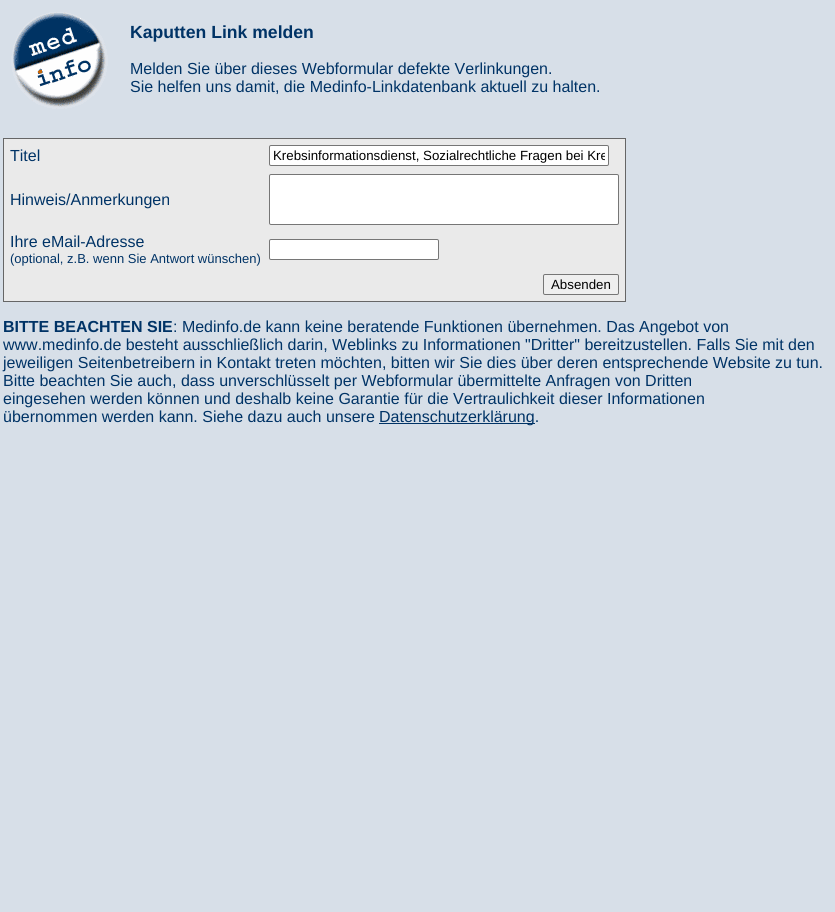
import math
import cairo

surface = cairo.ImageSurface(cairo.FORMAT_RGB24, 835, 912)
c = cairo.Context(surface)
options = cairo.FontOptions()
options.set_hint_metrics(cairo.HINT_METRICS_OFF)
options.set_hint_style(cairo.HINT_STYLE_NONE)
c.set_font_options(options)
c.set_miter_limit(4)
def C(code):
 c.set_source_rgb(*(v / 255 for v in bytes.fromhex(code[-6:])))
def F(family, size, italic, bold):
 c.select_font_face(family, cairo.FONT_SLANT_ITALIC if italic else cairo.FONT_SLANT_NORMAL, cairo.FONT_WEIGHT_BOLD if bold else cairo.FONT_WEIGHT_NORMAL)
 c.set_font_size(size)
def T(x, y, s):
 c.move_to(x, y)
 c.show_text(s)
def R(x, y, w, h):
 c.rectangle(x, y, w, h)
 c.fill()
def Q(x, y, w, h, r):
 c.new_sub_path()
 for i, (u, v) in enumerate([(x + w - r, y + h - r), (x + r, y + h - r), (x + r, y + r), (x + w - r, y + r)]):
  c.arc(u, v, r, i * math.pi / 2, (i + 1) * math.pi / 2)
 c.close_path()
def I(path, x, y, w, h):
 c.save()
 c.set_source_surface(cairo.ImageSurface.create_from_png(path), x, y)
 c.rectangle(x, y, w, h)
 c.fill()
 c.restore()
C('d7dfe8')
c.paint()
I('1.png',11,12,97,97)
F('Liberation Sans',17.6,0,1)
C('003366')
T(130,38,'Kaputten Link melden')
F('Liberation Sans',16,0,0)
T(130,74,'Melden Sie über dieses Webformular defekte Verlinkungen.')
T(130,92,'Sie helfen uns damit, die Medinfo-Linkdatenbank aktuell zu halten.')
C('666666')
R(3,138,623,164)
C('eaeaea')
R(4,139,621,162)
C('003366')
T(10,161,'Titel')
C('ffffff')
Q(269.5,145.5,339,20,1.5)
c.fill_preserve()
C('767676')
c.set_line_width(1)
c.stroke()
c.save()
c.rectangle(273,148,332,15)
c.clip()
F('Liberation Sans',13.3,0,0)
C('000000')
T(273,160,'Krebsinformationsdienst, Sozialrechtliche Fragen bei Kre')
c.restore()
C('003366')
T(10,205,'Hinweis/Anmerkungen')
C('ffffff')
Q(269.5,174.5,349,50,1.5)
c.fill_preserve()
C('767676')
c.stroke()
C('003366')
T(10,247,'Ihre eMail-Adresse')
F('Liberation Sans',13,0,0)
T(10,263,'(optional, z.B. wenn Sie Antwort wünschen)')
C('ffffff')
Q(269.5,239.5,169,20,1.5)
c.fill_preserve()
C('767676')
c.stroke()
C('efefef')
Q(543.5,274.5,75,20,1.5)
c.fill_preserve()
C('767676')
c.stroke()
F('Liberation Sans',13.3,0,0)
C('000000')
T(551,289,'Absenden')
F('Liberation Sans',16,0,1)
C('003366')
T(3,332,'BITTE BEACHTEN SIE')
F('Liberation Sans',16,0,0)
T(173,332,': Medinfo.de kann keine beratende Funktionen übernehmen. Das Angebot von')
T(3,350,'www.medinfo.de besteht ausschließlich darin, Weblinks zu Informationen "Dritter" bereitzustellen. Falls Sie mit den')
T(3,368,'jeweiligen Seitenbetreibern in Kontakt treten möchten, bitten wir Sie dies über deren entsprechende Website zu tun.')
T(3,386,'Bitte beachten Sie auch, dass unverschlüsselt per Webformular übermittelte Anfragen von Dritten')
T(3,404,'eingesehen werden können und deshalb keine Garantie für die Vertraulichkeit dieser Informationen')
T(3,422,'übernommen werden kann. Siehe dazu auch unsere')
R(379,423,156,1)
T(379,422,'Datenschutzerklärung.')
surface.write_to_png('o.png')
